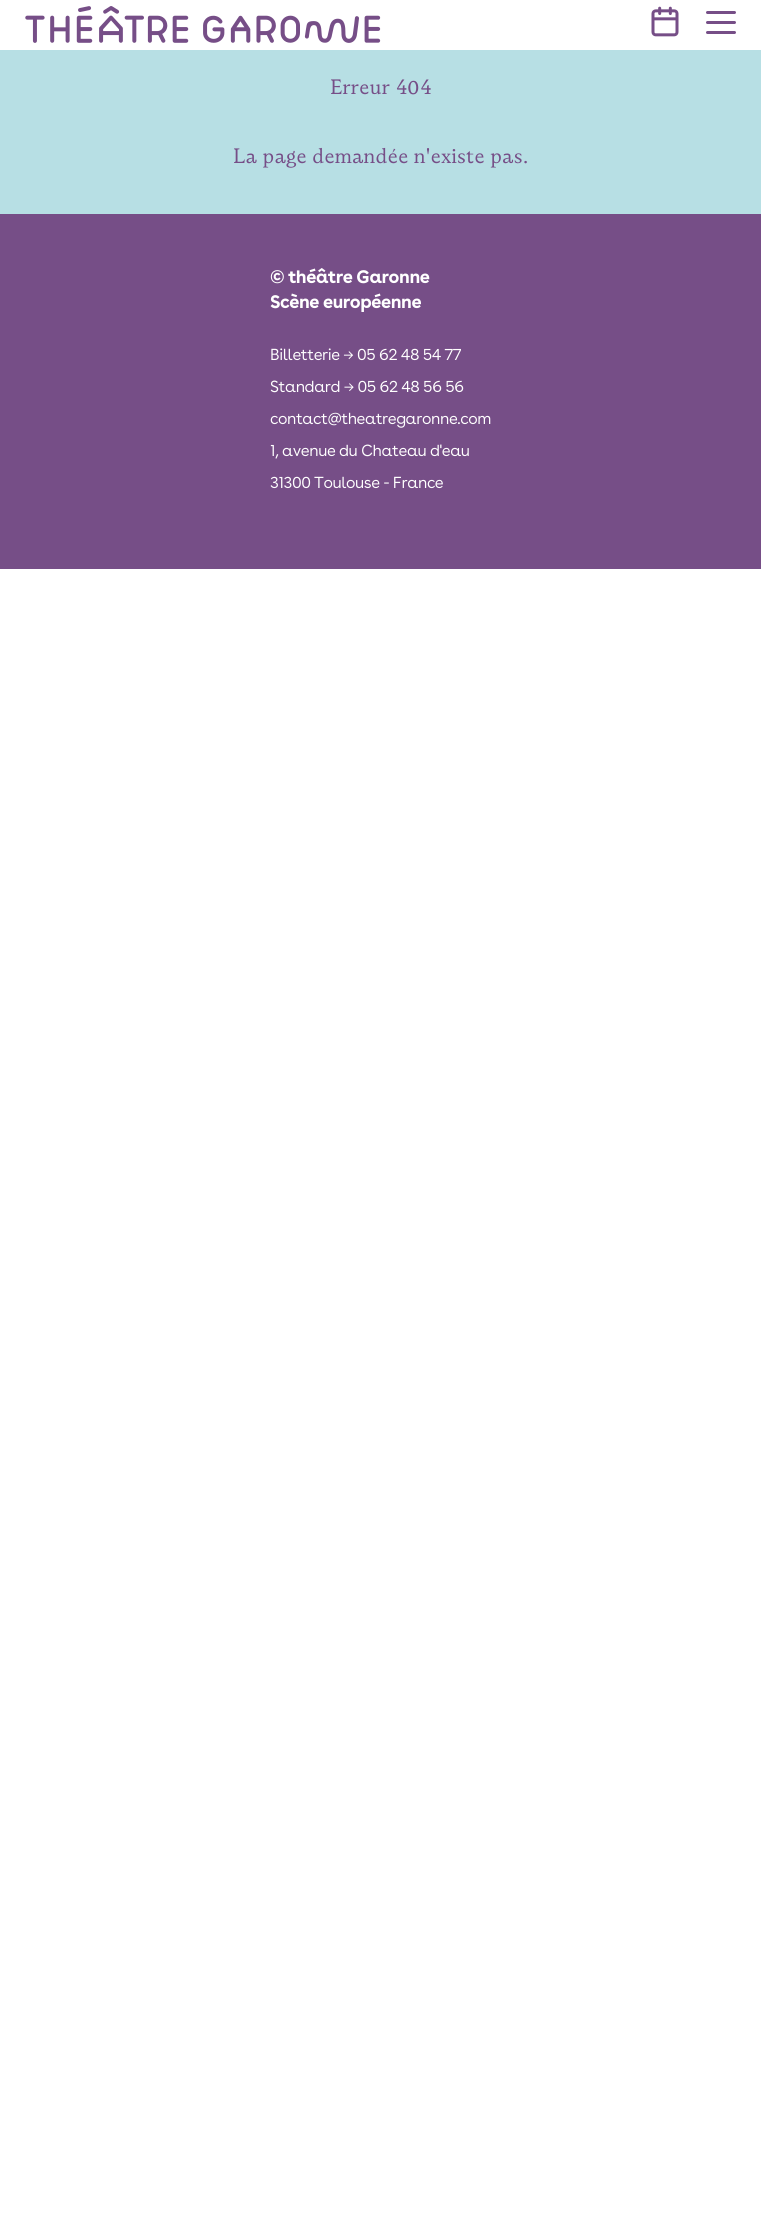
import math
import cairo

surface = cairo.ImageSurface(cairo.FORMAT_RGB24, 761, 2215)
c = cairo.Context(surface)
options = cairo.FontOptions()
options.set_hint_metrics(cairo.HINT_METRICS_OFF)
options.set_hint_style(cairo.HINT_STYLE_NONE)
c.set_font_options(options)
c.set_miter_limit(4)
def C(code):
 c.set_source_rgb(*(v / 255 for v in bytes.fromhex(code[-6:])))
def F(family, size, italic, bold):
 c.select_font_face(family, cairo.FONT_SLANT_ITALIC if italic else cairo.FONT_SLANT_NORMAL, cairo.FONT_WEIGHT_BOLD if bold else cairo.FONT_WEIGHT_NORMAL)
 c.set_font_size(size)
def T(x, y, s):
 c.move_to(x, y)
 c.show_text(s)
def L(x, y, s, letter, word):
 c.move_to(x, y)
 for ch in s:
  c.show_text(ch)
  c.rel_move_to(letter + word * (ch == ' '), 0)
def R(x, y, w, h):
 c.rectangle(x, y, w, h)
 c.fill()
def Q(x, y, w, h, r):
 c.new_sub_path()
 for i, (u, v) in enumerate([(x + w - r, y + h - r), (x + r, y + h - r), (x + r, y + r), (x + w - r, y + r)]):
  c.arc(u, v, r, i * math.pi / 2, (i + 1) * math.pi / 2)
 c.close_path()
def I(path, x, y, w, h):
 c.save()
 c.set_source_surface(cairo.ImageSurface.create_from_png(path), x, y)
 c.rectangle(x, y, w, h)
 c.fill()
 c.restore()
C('ffffff')
c.paint()
I('1.png',25,6,356,37)
I('2.png',651,6,28,31)
C('764e87')
Q(706,21,30,3,1.5)
c.fill()
Q(706,11,30,3,1.5)
c.fill()
Q(706,31,30,3,1.5)
c.fill()
C('b7dfe4')
R(0,50,761,164)
F('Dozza',21,0,0)
C('764e87')
T(330,94,'Erreur 404')
T(233,163,'La page demandée n\'existe pas.')
R(0,214,761,355)
F('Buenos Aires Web',18,0,1)
C('ffffff')
L(270,283,'© théâtre Garonne',-.45,0)
L(270,308,'Scène européenne',-.45,0)
F('Buenos Aires Web',16,0,0)
L(270,360,'Billetterie → 05 62 48 54 77',-.45,0)
L(270,392,'Standard → 05 62 48 56 56',-.45,0)
L(270,424,'contact@theatregaronne.com',-.45,0)
L(270,456,'1, avenue du Chateau d\'eau',-.45,0)
L(270,488,'31300 Toulouse - France',-.45,0)
surface.write_to_png('o.png')
